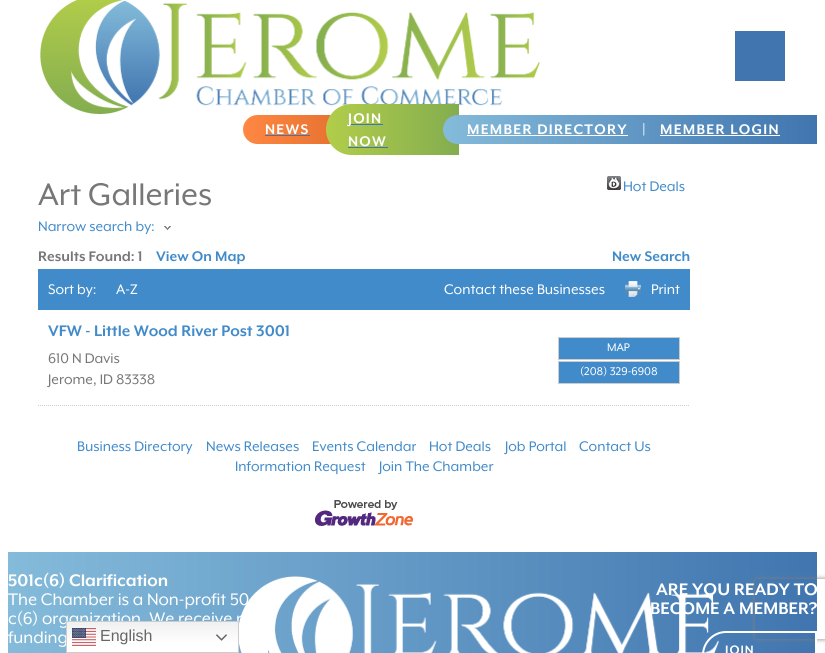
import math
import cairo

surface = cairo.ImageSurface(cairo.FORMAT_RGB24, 825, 653)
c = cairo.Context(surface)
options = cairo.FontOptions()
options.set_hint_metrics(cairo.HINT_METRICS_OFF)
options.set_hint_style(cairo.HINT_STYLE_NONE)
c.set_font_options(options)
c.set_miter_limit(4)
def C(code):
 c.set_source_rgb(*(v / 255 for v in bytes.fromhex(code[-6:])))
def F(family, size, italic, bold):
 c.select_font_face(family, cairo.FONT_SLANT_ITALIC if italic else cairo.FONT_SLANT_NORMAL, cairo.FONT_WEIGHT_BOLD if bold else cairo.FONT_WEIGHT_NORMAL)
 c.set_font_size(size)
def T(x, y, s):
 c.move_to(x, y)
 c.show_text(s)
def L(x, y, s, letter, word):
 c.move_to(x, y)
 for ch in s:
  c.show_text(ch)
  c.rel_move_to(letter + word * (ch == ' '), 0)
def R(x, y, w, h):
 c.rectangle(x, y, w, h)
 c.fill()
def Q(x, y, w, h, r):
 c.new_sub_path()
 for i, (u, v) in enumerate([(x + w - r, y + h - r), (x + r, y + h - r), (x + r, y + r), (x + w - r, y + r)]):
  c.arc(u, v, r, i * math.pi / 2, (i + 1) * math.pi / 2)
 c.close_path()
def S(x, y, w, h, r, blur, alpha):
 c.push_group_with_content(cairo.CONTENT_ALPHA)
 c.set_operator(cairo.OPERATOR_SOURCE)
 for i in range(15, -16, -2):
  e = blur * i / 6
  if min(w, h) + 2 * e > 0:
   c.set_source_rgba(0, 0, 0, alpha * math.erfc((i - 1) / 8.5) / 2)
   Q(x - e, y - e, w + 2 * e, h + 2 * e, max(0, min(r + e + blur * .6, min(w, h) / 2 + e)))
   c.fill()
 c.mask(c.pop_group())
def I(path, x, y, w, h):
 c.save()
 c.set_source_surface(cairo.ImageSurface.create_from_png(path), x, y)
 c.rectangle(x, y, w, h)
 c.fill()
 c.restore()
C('ffffff')
c.paint()
I('1.png',40,0,500,114)
C('4075af')
R(735,31,50,50)
gradient = cairo.LinearGradient(243,130,342,130)
gradient.add_color_stop_rgba(0,1,0.529,0.263,1)
gradient.add_color_stop_rgba(1,0.902,0.443,0.184,1)
c.set_source(gradient)
c.new_path()
c.move_to(257.5,115)
c.line_to(342,115)
c.line_to(342,144)
c.line_to(257.5,144)
c.curve_to(249.5,144,243,137.5,243,129.5)
c.curve_to(243,121.5,249.5,115,257.5,115)
c.close_path()
c.fill()
F('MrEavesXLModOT',16,0,1)
C('ffffff')
L(265,134,'NEWS',1.25,0)
C('4075af')
R(265,135,45,1)
gradient = cairo.LinearGradient(326,130,459,130)
gradient.add_color_stop_rgba(0,0.698,0.804,0.29,1)
gradient.add_color_stop_rgba(1,0.514,0.678,0.31,1)
c.set_source(gradient)
c.new_path()
c.move_to(351.5,104)
c.line_to(459,104)
c.line_to(459,155)
c.line_to(351.5,155)
c.curve_to(337.5,155,326,143.5,326,129.5)
c.curve_to(326,115.5,337.5,104,351.5,104)
c.close_path()
c.fill()
C('4075af')
R(348,124,35,1)
C('ffffff')
L(348,123,'JOIN',1.25,0)
L(348,146,'NOW',1.25,0)
C('4075af')
R(348,147,40,1)
gradient = cairo.LinearGradient(443,130,817,130)
gradient.add_color_stop_rgba(0,0.518,0.733,0.855,1)
gradient.add_color_stop_rgba(1,0.251,0.459,0.686,1)
c.set_source(gradient)
c.new_path()
c.move_to(457.5,115)
c.line_to(817,115)
c.line_to(817,144)
c.line_to(457.5,144)
c.curve_to(449.5,144,443,137.5,443,129.5)
c.curve_to(443,121.5,449.5,115,457.5,115)
c.close_path()
c.fill()
C('ffffff')
L(467,134,'MEMBER DIRECTORY',1.25,0)
R(467,135,161,1)
L(642,134,'|',1.25,0)
L(660,134,'MEMBER LOGIN',1.25,0)
R(660,135,120,1)
F('MrEavesXLModOT',36,0,0)
C('777777')
T(38,205,'Art Galleries')
I('2.png',607,176,14,14)
F('MrEavesXLModOT',16,0,0)
C('428bca')
T(623,191,'Hot Deals')
T(38,231,'Narrow search by:')
I('3.png',164,226,7,4)
F('MrEavesXLModOT',16,0,1)
C('777777')
T(38,261,'Results Found: 1')
C('428bca')
T(156,261,'View On Map')
T(612,261,'New Search')
R(38,269,652,41)
F('MrEavesXLModOT',16,0,0)
C('ffffff')
T(48,294,'Sort by:')
T(116,294,'A-Z')
T(444,294,'Contact these Businesses')
I('4.png',625,281,16,16)
T(651,294,'Print')
c.new_path()
c.move_to(38,405.5)
c.line_to(690,405.5)
C('cccccc')
c.set_line_width(1)
c.set_dash([1,1])
c.stroke()
F('MrEavesXLModOT',17.6,0,1)
C('428bca')
T(48,336,'VFW - Little Wood River Post 3001')
F('MrEavesXLModOT',16,0,0)
C('777777')
T(48,363,'610 N Davis')
T(48,384,'Jerome, ID 83338')
C('428bca')
c.rectangle(558.5,337.5,121,22)
c.fill_preserve()
C('cccccc')
c.set_dash([])
c.stroke()
F('MrEavesXLModOT',12.75,0,0)
C('ffffff')
T(607,351,'MAP')
C('428bca')
c.rectangle(558.5,361.5,121,22)
c.fill_preserve()
C('cccccc')
c.stroke()
C('ffffff')
T(580,375,'(208) 329-6908')
F('MrEavesXLModOT',16,0,0)
C('428bca')
T(77,451,'Business Directory')
T(206,451,'News Releases')
T(312,451,'Events Calendar')
T(429,451,'Hot Deals')
T(505,451,'Job Portal')
T(579,451,'Contact Us')
T(235,471,'Information Request')
T(379,471,'Join The Chamber')
I('5.png',315,500,98,26)
gradient = cairo.LinearGradient(8,632,817,632)
gradient.add_color_stop_rgba(0,0.518,0.733,0.855,1)
gradient.add_color_stop_rgba(1,0.251,0.459,0.686,1)
c.set_source(gradient)
R(8,552,809,101)
F('MrEavesXLModOT',19.25,0,1)
C('ffffff')
T(8,586,'501c(6) Clarification')
F('MrEavesXLModOT',19.25,0,0)
T(8,605,'The Chamber is a Non-profit 50')
T(8,624,'c(6) organization. We receive n')
T(8,643,'funding')
I('6.png',239,576,481,77)
c.save()
c.set_fill_rule(cairo.FILL_RULE_EVEN_ODD)
c.new_path()
c.move_to(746,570)
c.line_to(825,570)
c.line_to(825,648)
c.line_to(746,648)
c.close_path()
c.move_to(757,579)
c.line_to(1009,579)
c.curve_to(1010,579,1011,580,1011,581)
c.line_to(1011,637)
c.curve_to(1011,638,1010,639,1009,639)
c.line_to(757,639)
c.curve_to(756,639,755,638,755,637)
c.line_to(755,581)
c.curve_to(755,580,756,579,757,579)
c.close_path()
c.clip()
C('808080')
S(755,579,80,60,2,2.5,1)
c.restore()
F('MrEavesXLModOT',19.25,0,1)
T(656,595,'ARE YOU READY TO')
T(650,614,'BECOME A MEMBER?')
c.new_path()
c.move_to(726,632)
c.line_to(816,632)
c.line_to(816,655)
c.curve_to(816,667.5,805.5,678,793,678)
c.line_to(703,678)
c.line_to(703,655)
c.curve_to(703,642.5,713.5,632,726,632)
c.close_path()
c.set_line_width(2)
c.stroke()
F('MrEavesXLModOT',14,0,1)
L(725,654,'JOIN',1,0)
gradient = cairo.LinearGradient(153,621,153,653)
gradient.add_color_stop_rgba(0,0.937,0.937,0.937,1)
gradient.add_color_stop_rgba(.7,1,1,1,1)
c.set_source(gradient)
R(67,622,171,30)
c.rectangle(66.5,621.5,172,31)
C('cccccc')
c.set_line_width(1)
c.stroke()
I('7.png',72,628,24,18)
F('Liberation Sans',16,0,0)
C('666666')
T(100,641,'English')
I('8.png',216,634,11,7)
surface.write_to_png('o.png')
